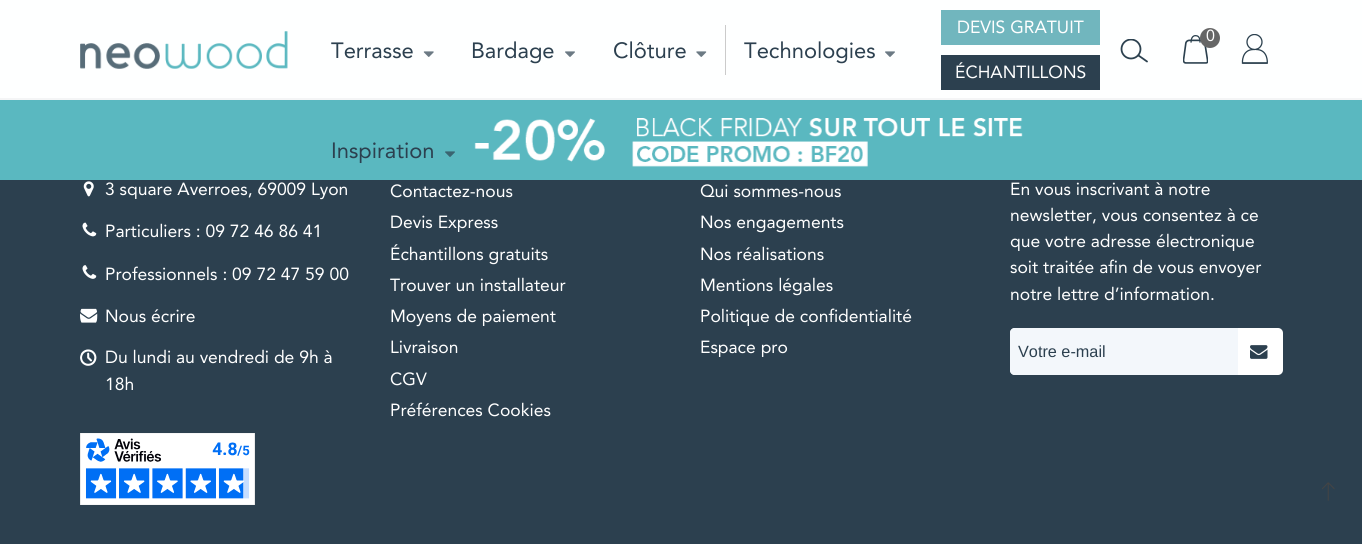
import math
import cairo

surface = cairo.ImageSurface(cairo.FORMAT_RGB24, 1362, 544)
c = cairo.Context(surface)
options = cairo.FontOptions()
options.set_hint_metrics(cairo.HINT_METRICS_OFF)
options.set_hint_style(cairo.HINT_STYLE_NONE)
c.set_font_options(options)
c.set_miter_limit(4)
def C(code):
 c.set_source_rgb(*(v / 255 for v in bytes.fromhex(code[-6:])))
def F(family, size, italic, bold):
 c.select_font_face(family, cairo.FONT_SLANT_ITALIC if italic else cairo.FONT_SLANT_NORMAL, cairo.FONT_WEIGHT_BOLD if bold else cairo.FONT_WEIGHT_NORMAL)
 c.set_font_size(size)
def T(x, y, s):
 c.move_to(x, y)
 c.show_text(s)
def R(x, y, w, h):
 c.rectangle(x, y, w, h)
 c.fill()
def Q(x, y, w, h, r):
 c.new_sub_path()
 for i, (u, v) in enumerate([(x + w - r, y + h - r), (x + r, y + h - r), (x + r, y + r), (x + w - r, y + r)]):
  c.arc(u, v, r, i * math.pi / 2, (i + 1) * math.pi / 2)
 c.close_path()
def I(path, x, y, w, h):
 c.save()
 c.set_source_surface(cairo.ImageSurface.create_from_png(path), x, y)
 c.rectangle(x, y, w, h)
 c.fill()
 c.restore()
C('feffff')
c.paint()
I('1.png',80,31,208,38)
F('Avenir',22,0,0)
C('2c404f')
T(331,58,'Terrasse')
I('2.png',423,51,11,6)
T(471,58,'Bardage')
I('3.png',565,51,10,6)
T(613,58,'Clôture')
I('4.png',696,51,11,6)
C('cbcbcb')
R(725,25,1,50)
C('2c404f')
T(744,58,'Technologies')
I('3.png',885,51,10,6)
C('5ab8c0')
R(0,100,1362,80)
C('2c404f')
T(331,158,'Inspiration')
I('5.png',445,151,10,6)
C('71b6be')
R(941,10,159,35)
F('Avenir',17.5,0,0)
C('ffffff')
T(957,33,'DEVIS GRATUIT')
C('2c404f')
R(941,55,159,35)
C('ffffff')
T(955,78,'ÉCHANTILLONS')
c.save()
c.rectangle(1120,39,29,25)
c.clip()
c.arc(1131,49,9.5,0,2 * math.pi)
C('2c414f')
c.set_line_width(1.8)
c.stroke()
c.restore()
c.new_path()
c.move_to(1147,61.5)
c.line_to(1138.5,55.5)
C('2c414f')
c.set_line_width(1.8)
c.set_line_cap(cairo.LINE_CAP_ROUND)
c.stroke()
I('6.png',1183,35,25,29)
C('666666')
c.arc(1210,38,10,0,2 * math.pi)
c.fill()
F('Avenir',16,0,0)
C('ffffff')
T(1206,41,'0')
I('7.png',1241,34,27,30)
I('8.png',474,118,549,49)
C('2c404f')
R(0,180,1362,364)
C('f4f5f6')
R(0,98,1362,2)
I('9.png',83,181,11,16)
F('Avenir',17.5,0,0)
C('ffffff')
T(105,195,'3 square Averroes, 69009 Lyon')
I('10.png',82,222,15,15)
T(105,237,'Particuliers : 09 72 46 86 41')
I('11.png',82,265,15,14)
T(105,280,'Professionnels : 09 72 47 59 00')
I('12.png',80,308,18,15)
T(105,322,'Nous écrire')
I('13.png',80,349,17,17)
T(105,363,'Du lundi au vendredi de 9h à')
T(105,390,'18h')
I('14.png',80,433,175,72)
T(390,197,'Contactez-nous')
T(390,228,'Devis Express')
T(390,260,'Échantillons gratuits')
T(390,291,'Trouver un installateur')
T(390,322,'Moyens de paiement')
T(390,353,'Livraison')
T(390,385,'CGV')
T(390,416,'Préférences Cookies')
T(700,197,'Qui sommes-nous')
T(700,228,'Nos engagements')
T(700,260,'Nos réalisations')
T(700,291,'Mentions légales')
T(700,322,'Politique de confidentialité')
T(700,353,'Espace pro')
T(1010,195,'En vous inscrivant à notre')
T(1010,221,'newsletter, vous consentez à ce')
T(1010,247,'que votre adresse électronique')
T(1010,273,'soit traitée afin de vous envoyer')
T(1010,300,'notre lettre d’information.')
Q(1010,328,273,47,5)
c.fill()
C('f3f7fb')
c.new_path()
c.move_to(1015,328)
c.line_to(1238,328)
c.line_to(1238,375)
c.line_to(1015,375)
c.curve_to(1012,375,1010,373,1010,370)
c.line_to(1010,333)
c.curve_to(1010,330,1012,328,1015,328)
c.close_path()
c.fill()
F('Liberation Sans',16.25,0,0)
C('2c404f')
T(1018,357,'Votre e-mail')
I('15.png',1250,345,18,14)
I('16.png',1322,482,13,19)
surface.write_to_png('o.png')
